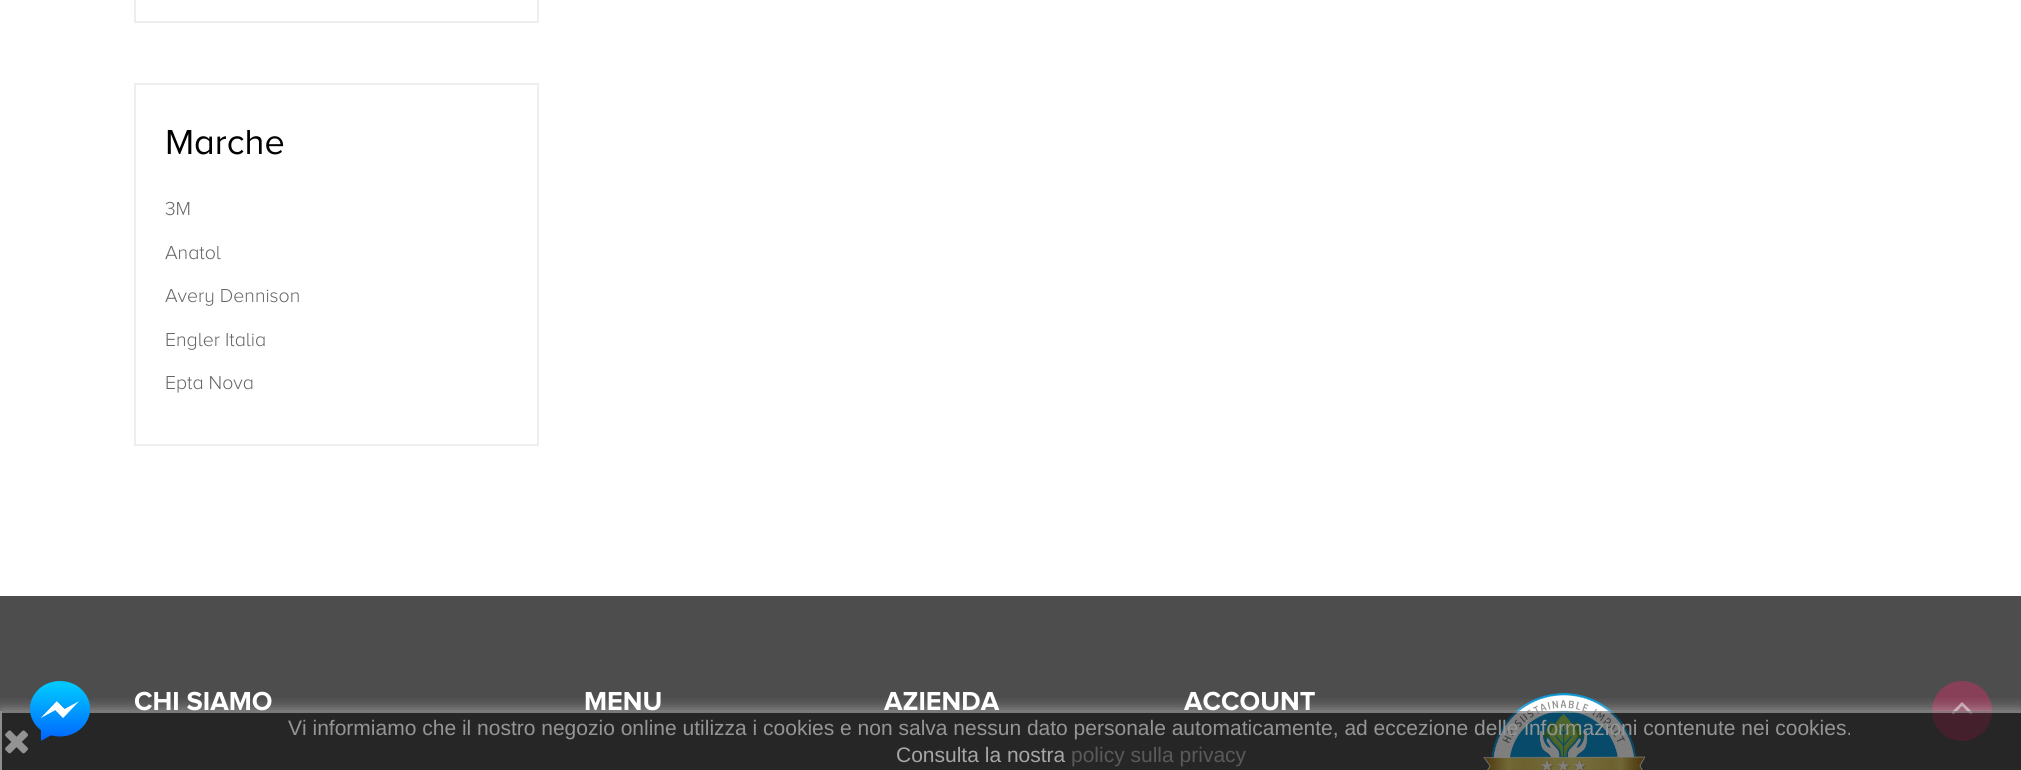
import math
import cairo

surface = cairo.ImageSurface(cairo.FORMAT_RGB24, 2021, 770)
c = cairo.Context(surface)
options = cairo.FontOptions()
options.set_hint_metrics(cairo.HINT_METRICS_OFF)
options.set_hint_style(cairo.HINT_STYLE_NONE)
c.set_font_options(options)
c.set_miter_limit(4)
def C(code):
 c.set_source_rgb(*(v / 255 for v in bytes.fromhex(code[-6:])))
def F(family, size, italic, bold):
 c.select_font_face(family, cairo.FONT_SLANT_ITALIC if italic else cairo.FONT_SLANT_NORMAL, cairo.FONT_WEIGHT_BOLD if bold else cairo.FONT_WEIGHT_NORMAL)
 c.set_font_size(size)
def T(x, y, s):
 c.move_to(x, y)
 c.show_text(s)
def R(x, y, w, h):
 c.rectangle(x, y, w, h)
 c.fill()
def Q(x, y, w, h, r):
 c.new_sub_path()
 for i, (u, v) in enumerate([(x + w - r, y + h - r), (x + r, y + h - r), (x + r, y + r), (x + w - r, y + r)]):
  c.arc(u, v, r, i * math.pi / 2, (i + 1) * math.pi / 2)
 c.close_path()
def S(x, y, w, h, r, blur, alpha):
 c.push_group_with_content(cairo.CONTENT_ALPHA)
 c.set_operator(cairo.OPERATOR_SOURCE)
 for i in range(15, -16, -2):
  e = blur * i / 6
  if min(w, h) + 2 * e > 0:
   c.set_source_rgba(0, 0, 0, alpha * math.erfc((i - 1) / 8.5) / 2)
   Q(x - e, y - e, w + 2 * e, h + 2 * e, max(0, min(r + e + blur * .6, min(w, h) / 2 + e)))
   c.fill()
 c.mask(c.pop_group())
def I(path, x, y, w, h):
 c.save()
 c.set_source_surface(cairo.ImageSurface.create_from_png(path), x, y)
 c.rectangle(x, y, w, h)
 c.fill()
 c.restore()
C('ffffff')
c.paint()
c.rectangle(135,-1,403,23)
C('eeeeee')
c.stroke()
c.rectangle(135,84,403,361)
c.stroke()
F('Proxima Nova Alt',36,0,0)
C('000000')
T(165,154,'Marche')
F('Proxima Nova Alt Light',19.5,0,0)
C('666666')
T(165,215,'3M')
T(165,259,'Anatol')
T(165,302,'Avery Dennison')
T(165,346,'Engler Italia')
T(165,389,'Epta Nova')
C('4d4d4d')
R(0,596,2021,174)
I('2.png',1483,693,162,77)
C('884058')
c.arc(1962,711,30,0,2 * math.pi)
c.fill()
I('4.png',1951,702,22,13)
c.save()
c.rectangle(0,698,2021,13)
c.clip()
C('ffffff')
S(0,711,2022,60,0,7.5,.5)
c.restore()
c.set_source_rgba(0,0,0,0.5)
R(2,711,2019,59)
c.set_source_rgba(0.8,0.8,0.8,0.5)
R(0,711,2021,2)
I('1.png',30,681,60,60)
F('Proxima Nova Alt',27,0,1)
C('ffffff')
T(134,710,'CHI SIAMO')
T(584,710,'MENU')
T(884,710,'AZIENDA')
T(1184,710,'ACCOUNT')
C('8d8d8d')
R(0,711,2,59)
I('3.png',5,730,23,24)
F('Liberation Sans',21,0,0)
C('949595')
T(288,735,'Vi informiamo che il nostro negozio online utilizza i cookies e non salva nessun dato personale automaticamente, ad eccezione delle informazioni contenute nei cookies.')
C('a6a6a6')
T(896,762,'Consulta la nostra')
C('5a5a5a')
T(1071,762,'policy sulla privacy')
surface.write_to_png('o.png')
